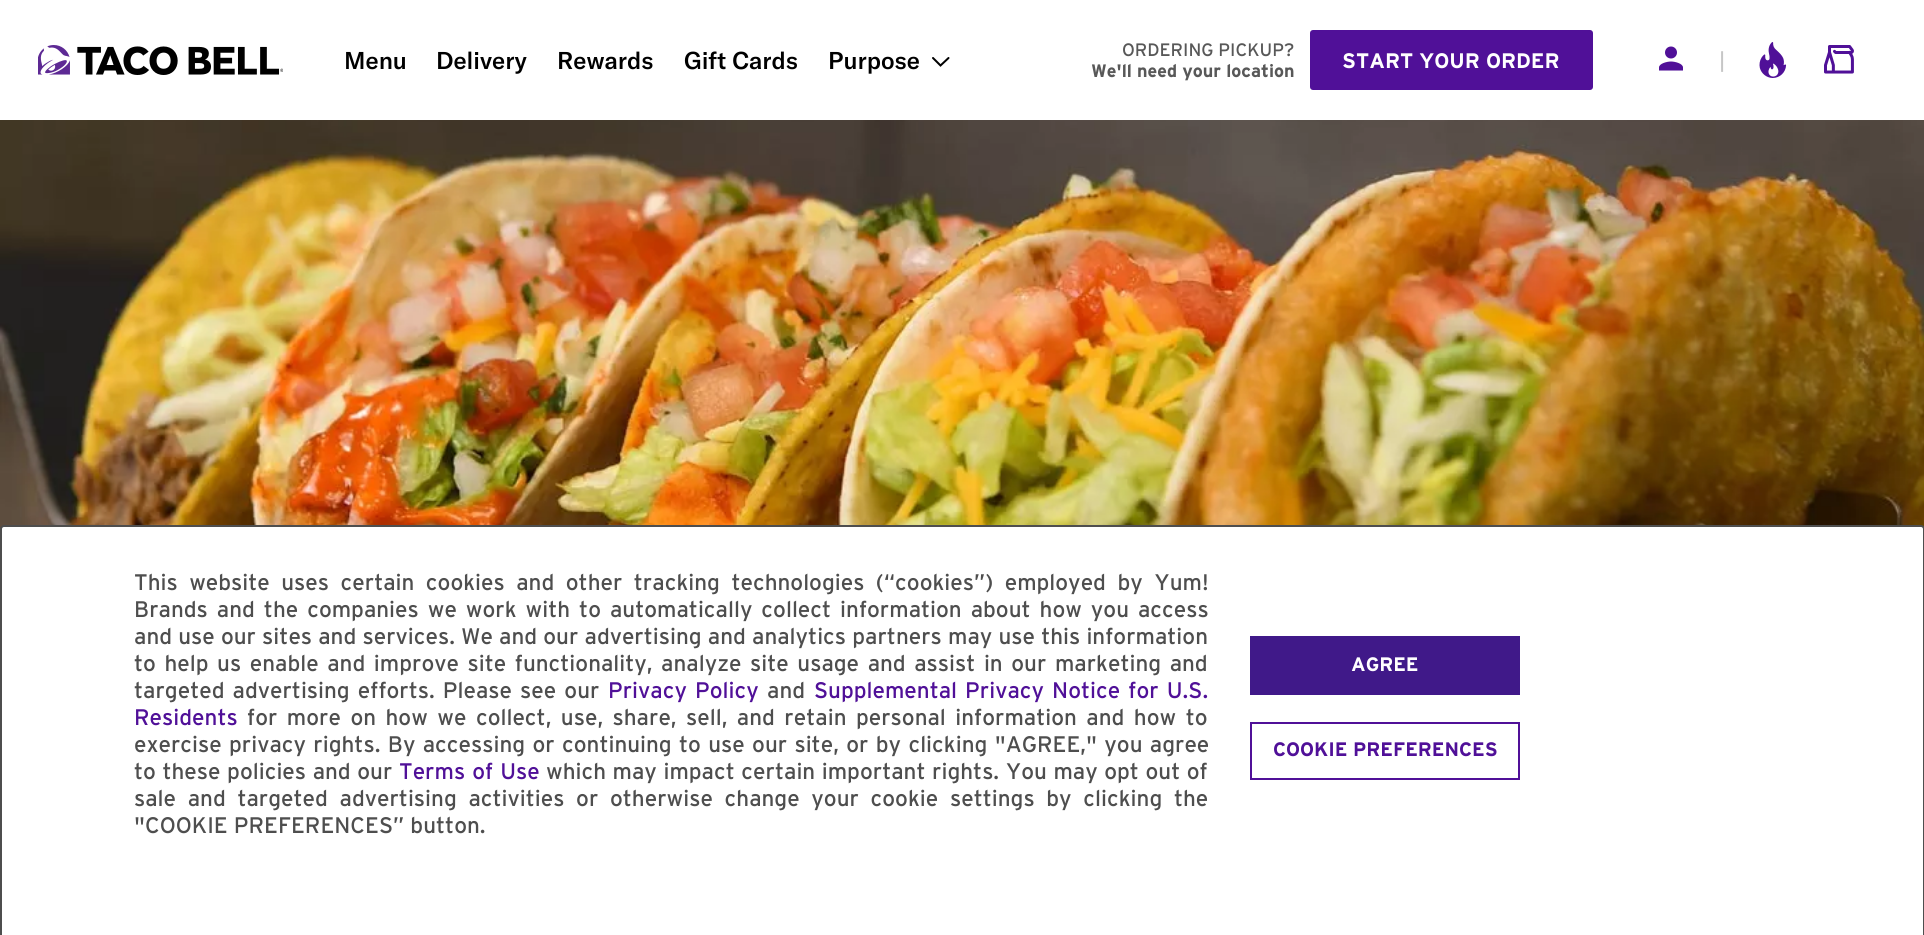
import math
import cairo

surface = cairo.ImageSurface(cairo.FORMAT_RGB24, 1924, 935)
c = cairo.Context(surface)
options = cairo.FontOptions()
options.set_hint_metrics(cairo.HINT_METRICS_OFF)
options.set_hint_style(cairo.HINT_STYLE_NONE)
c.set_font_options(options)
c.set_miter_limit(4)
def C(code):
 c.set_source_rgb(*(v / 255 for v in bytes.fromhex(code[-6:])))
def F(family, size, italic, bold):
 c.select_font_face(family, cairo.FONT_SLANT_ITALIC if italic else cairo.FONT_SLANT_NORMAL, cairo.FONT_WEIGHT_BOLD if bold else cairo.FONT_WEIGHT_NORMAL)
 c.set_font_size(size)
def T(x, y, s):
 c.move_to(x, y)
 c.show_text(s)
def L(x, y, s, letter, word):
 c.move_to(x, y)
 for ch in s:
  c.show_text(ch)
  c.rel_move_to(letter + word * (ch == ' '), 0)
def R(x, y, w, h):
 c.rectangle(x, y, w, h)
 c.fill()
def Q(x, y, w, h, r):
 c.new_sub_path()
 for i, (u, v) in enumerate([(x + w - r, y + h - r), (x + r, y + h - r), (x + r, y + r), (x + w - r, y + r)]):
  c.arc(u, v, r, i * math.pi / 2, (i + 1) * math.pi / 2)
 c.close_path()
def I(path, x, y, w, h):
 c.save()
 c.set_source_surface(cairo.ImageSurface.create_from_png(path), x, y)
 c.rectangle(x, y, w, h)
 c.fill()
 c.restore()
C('ffffff')
c.paint()
I('1.png',38,45,245,30)
F('GT America Medium',24,0,0)
C('000000')
T(344,69,'Menu')
T(436,69,'Delivery')
T(557,69,'Rewards')
T(684,69,'Gift Cards')
T(828,69,'Purpose')
c.new_path()
c.move_to(933,58)
c.line_to(940.5,65.5)
c.line_to(948.5,58)
c.set_line_cap(cairo.LINE_CAP_ROUND)
c.stroke()
F('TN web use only',18,0,0)
C('585858')
T(1122,56,'ORDERING PICKUP?')
F('TN web use only',18,0,1)
T(1091,77,'We\'ll need your location')
C('501098')
Q(1310,30,283,60,3)
c.fill()
F('TN web use only',21,0,1)
C('ffffff')
T(1342,68,'START YOUR ORDER')
I('2.png',1659,46,24,25)
F('TN web use only',21,0,0)
C('c6c6c6')
T(1719,68,'|')
I('3.png',1759,42,28,36)
I('4.png',1824,45,30,29)
I('5.png',0,120,1924,409)
C('ffffff')
Q(1,526,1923,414,3)
c.fill_preserve()
C('4e4e4e')
c.set_line_cap(cairo.LINE_CAP_BUTT)
c.stroke()
F('TN web use only',22.5,0,0)
L(134,590,'This website uses certain cookies and other tracking technologies (“cookies”) employed by Yum!',0,5.4)
L(134,617,'Brands and the companies we work with to automatically collect information about how you access',0,2.9)
L(134,644,'and use our sites and services. We and our advertising and analytics partners may use this information',0,.1)
L(134,671,'to help us enable and improve site functionality, analyze site usage and assist in our marketing and',0,2.5)
L(134,698,'targeted advertising efforts. Please see our',0,2)
C('501098')
L(608,698,'Privacy Policy',0,2)
C('4e4e4e')
T(767,698,'and')
C('501098')
L(814,698,'Supplemental Privacy Notice for U.S.',0,2)
T(134,725,'Residents')
C('4e4e4e')
L(247,725,'for more on how we collect, use, share, sell, and retain personal information and how to',0,3.4)
L(134,752,'exercise privacy rights. By accessing or continuing to use our site, or by clicking "AGREE," you agree',0,1.25)
L(134,779,'to these policies and our',0,.5)
C('501098')
L(399,779,'Terms of Use',0,1)
C('4e4e4e')
L(546,779,'which may impact certain important rights. You may opt out of',0,.5)
L(134,806,'sale and targeted advertising activities or otherwise change your cookie settings by clicking the',0,5.6)
T(134,833,'"COOKIE PREFERENCES” button.')
C('401989')
R(1250,636,270,59)
F('TN web use only',19.5,0,1)
C('ffffff')
T(1351,671,'AGREE')
c.rectangle(1251,723,268,56)
C('501098')
c.stroke()
T(1273,756,'COOKIE PREFERENCES')
surface.write_to_png('o.png')
